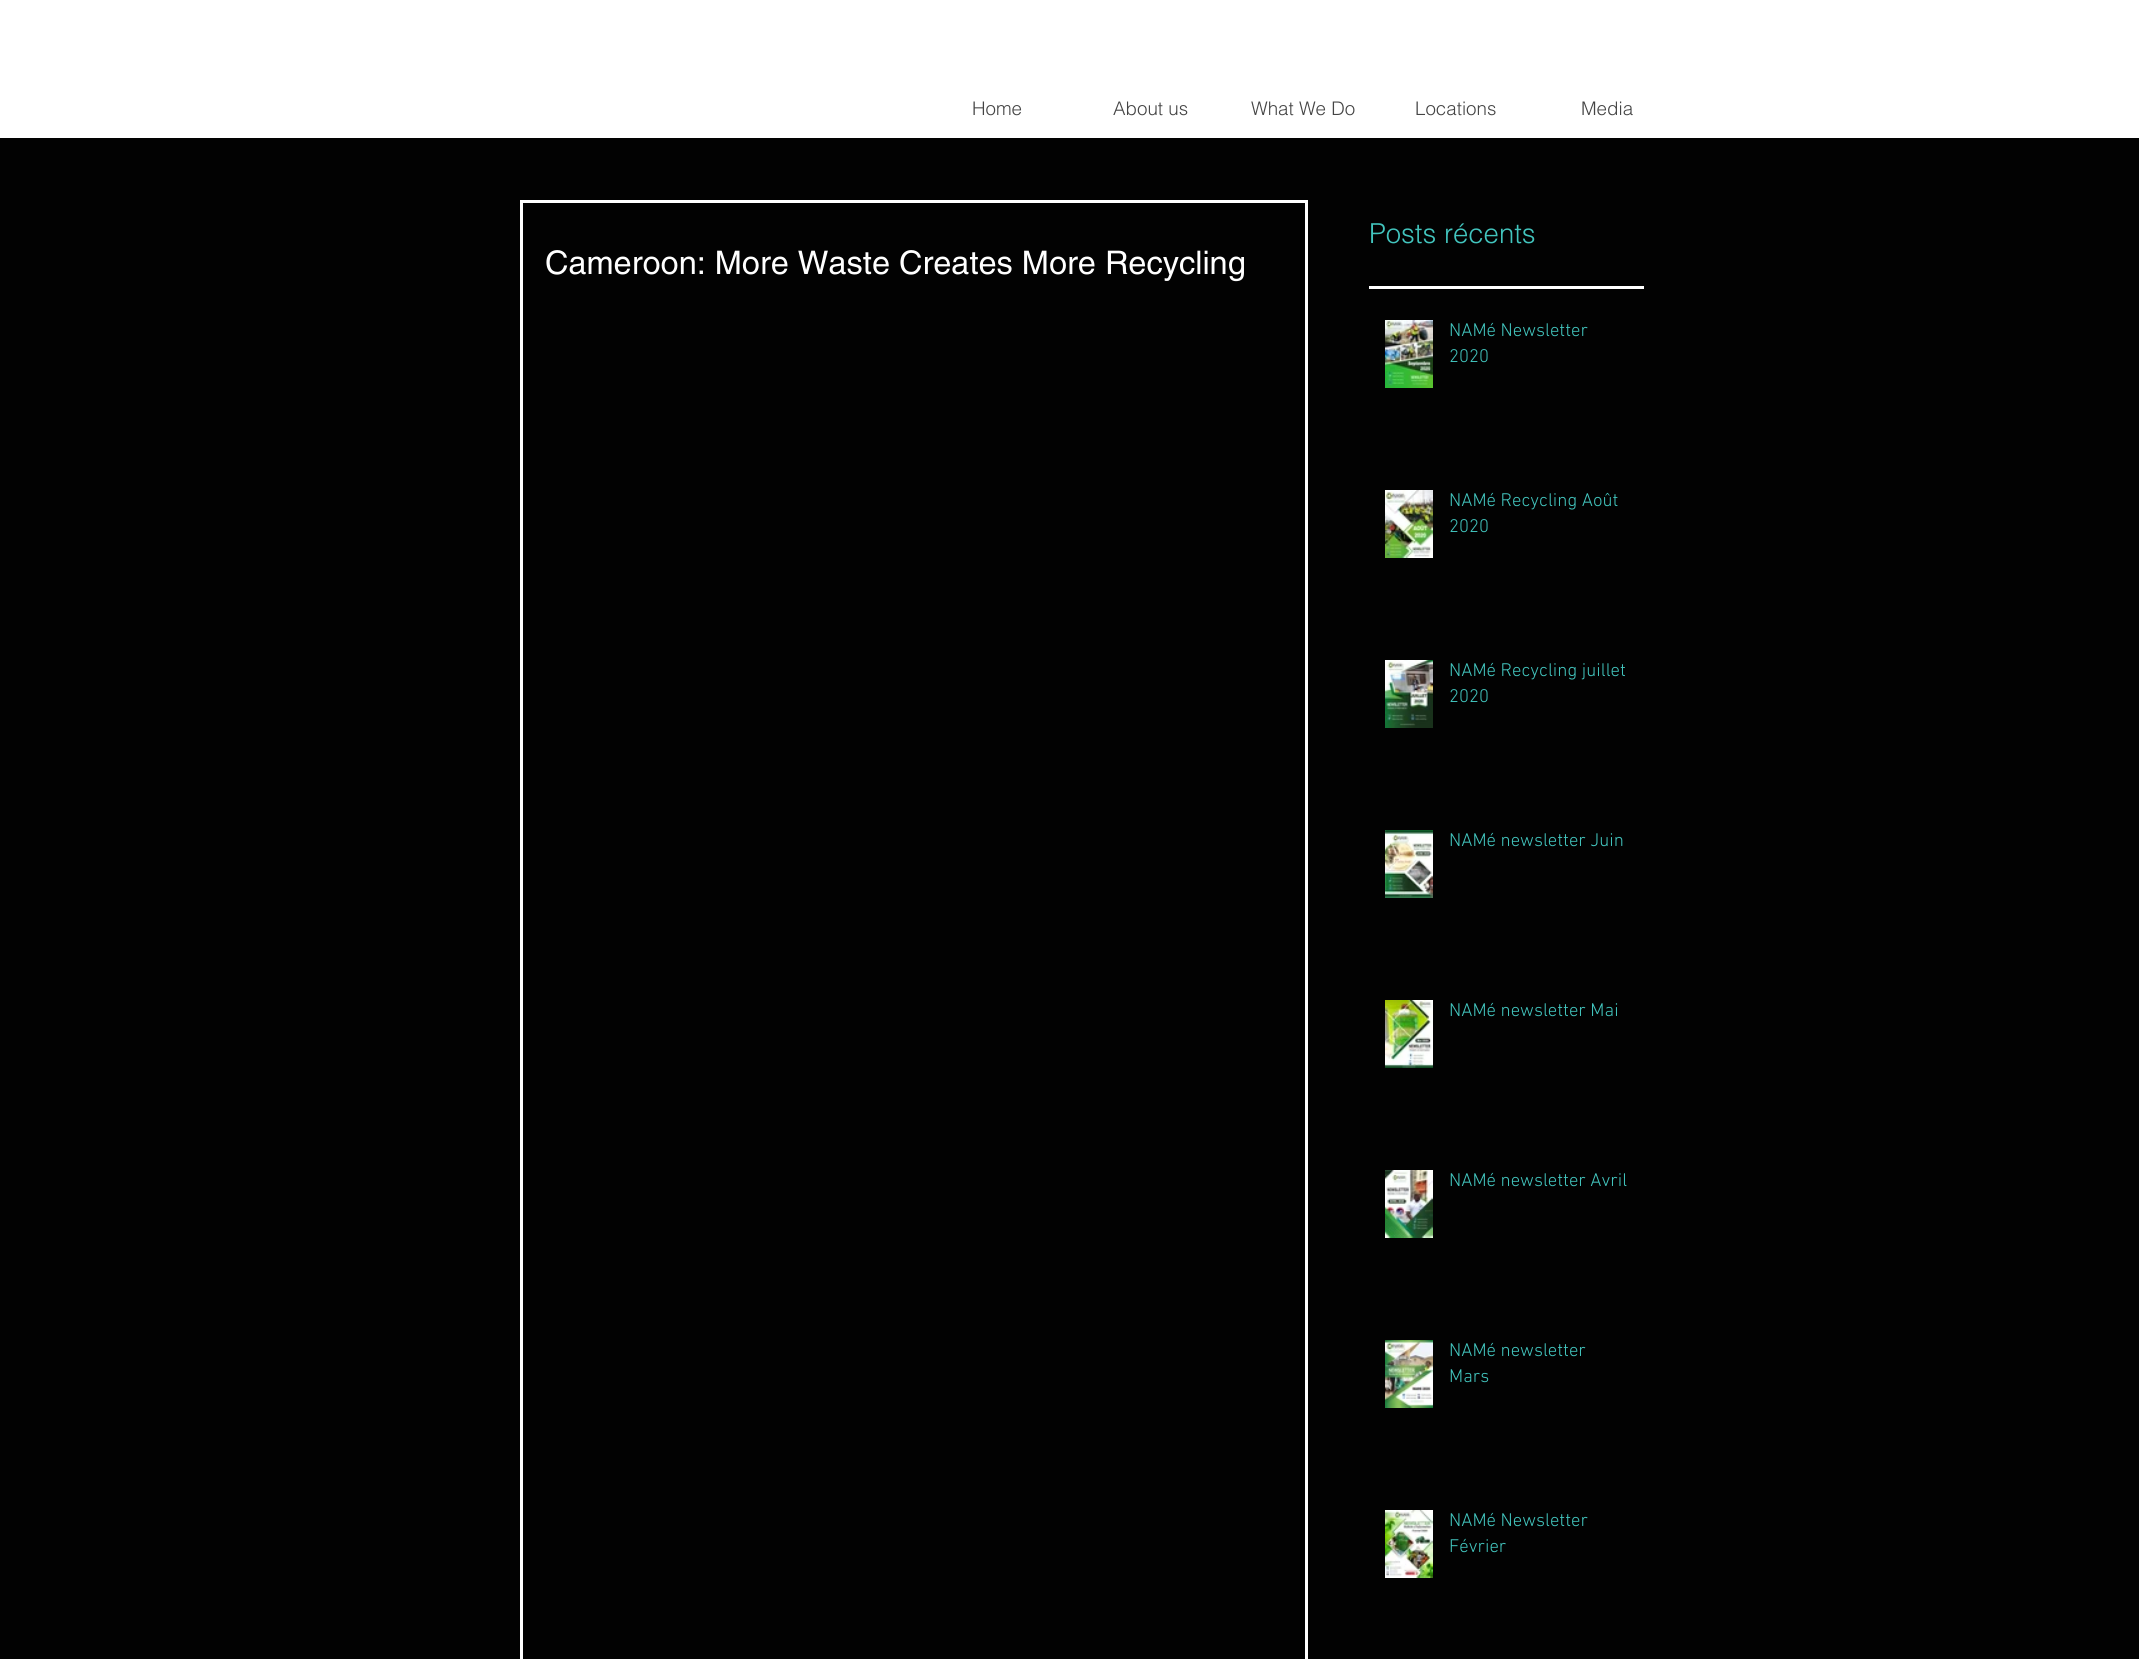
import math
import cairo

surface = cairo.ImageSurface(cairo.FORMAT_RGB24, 2139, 1659)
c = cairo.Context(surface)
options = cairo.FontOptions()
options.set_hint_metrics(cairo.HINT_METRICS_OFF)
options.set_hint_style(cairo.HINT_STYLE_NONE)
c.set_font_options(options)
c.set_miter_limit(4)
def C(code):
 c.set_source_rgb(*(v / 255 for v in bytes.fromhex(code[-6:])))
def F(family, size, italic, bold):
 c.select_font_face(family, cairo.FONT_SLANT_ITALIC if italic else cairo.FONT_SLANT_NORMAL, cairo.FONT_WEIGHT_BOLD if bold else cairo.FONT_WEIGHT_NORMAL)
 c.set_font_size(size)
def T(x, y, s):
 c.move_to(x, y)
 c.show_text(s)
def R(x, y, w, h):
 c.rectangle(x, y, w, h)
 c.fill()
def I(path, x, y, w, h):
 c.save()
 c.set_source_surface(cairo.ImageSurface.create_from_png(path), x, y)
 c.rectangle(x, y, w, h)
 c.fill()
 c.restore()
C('020202')
c.paint()
C('ffffff')
R(0,0,2139,138)
F('helvetica Light',18.75,0,0)
C('444444')
T(972,115,'Home')
T(1113,115,'About us')
T(1251,115,'What We Do')
T(1415,115,'Locations')
T(1581,115,'Media')
F('helvetica Light',27.5,0,0)
C('42c5be')
T(1369,243,'Posts récents')
c.rectangle(521.5,201.5,785,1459)
C('ffffff')
c.set_line_width(3)
c.stroke()
F('helvetica',32.5,0,0)
T(545,274,'Cameroon: More Waste Creates More Recycling')
R(1369,286,275,3)
I('1.png',1385,320,48,68)
F('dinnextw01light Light',18.75,0,0)
C('42c5be')
T(1449,336,'NAMé Newsletter')
T(1449,362,'2020')
I('2.png',1385,490,48,68)
T(1449,506,'NAMé Recycling Août')
T(1449,532,'2020')
I('3.png',1385,660,48,68)
T(1449,676,'NAMé Recycling juillet')
T(1449,702,'2020')
I('4.png',1385,830,48,68)
T(1449,846,'NAMé newsletter Juin')
I('5.png',1385,1000,48,68)
T(1449,1016,'NAMé newsletter Mai')
I('6.png',1385,1170,48,68)
T(1449,1186,'NAMé newsletter Avril')
I('7.png',1385,1340,48,68)
T(1449,1356,'NAMé newsletter')
T(1449,1382,'Mars')
I('8.png',1385,1510,48,68)
T(1449,1526,'NAMé Newsletter')
T(1449,1552,'Février')
surface.write_to_png('o.png')
